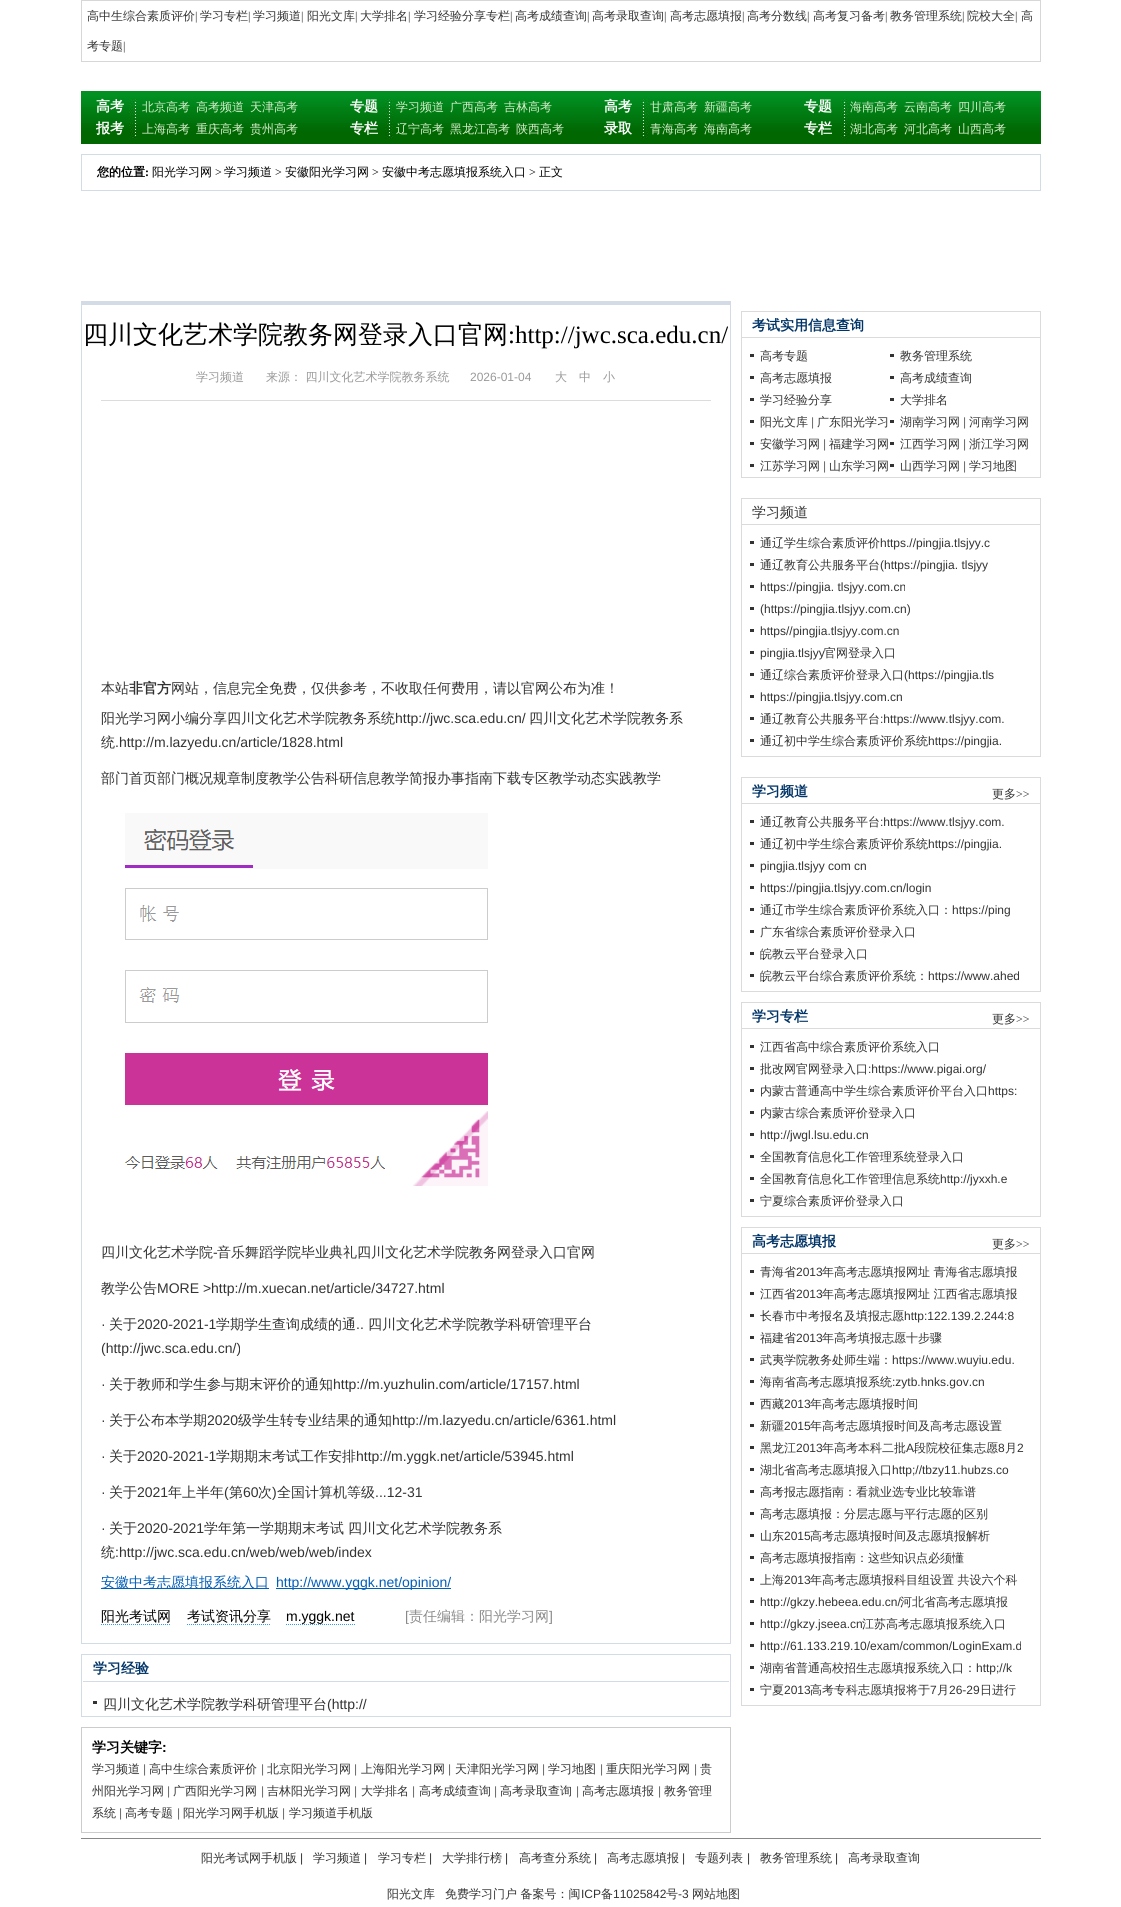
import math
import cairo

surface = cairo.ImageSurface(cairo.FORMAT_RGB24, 1121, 1907)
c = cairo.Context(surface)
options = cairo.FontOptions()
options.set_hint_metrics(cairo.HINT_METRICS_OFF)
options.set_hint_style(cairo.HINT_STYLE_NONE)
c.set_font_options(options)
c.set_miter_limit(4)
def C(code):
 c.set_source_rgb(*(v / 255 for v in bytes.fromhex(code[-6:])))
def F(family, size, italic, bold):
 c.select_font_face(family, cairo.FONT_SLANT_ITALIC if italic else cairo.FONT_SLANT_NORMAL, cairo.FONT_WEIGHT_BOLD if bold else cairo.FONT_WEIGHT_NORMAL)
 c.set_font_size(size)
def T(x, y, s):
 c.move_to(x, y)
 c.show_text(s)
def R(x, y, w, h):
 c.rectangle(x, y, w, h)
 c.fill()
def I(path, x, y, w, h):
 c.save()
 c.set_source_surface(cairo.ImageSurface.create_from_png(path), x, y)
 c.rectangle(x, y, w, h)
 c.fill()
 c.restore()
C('ffffff')
c.paint()
c.rectangle(81.5,.5,959,61)
C('d7d7d7')
c.set_line_width(1)
c.stroke()
F('WenQuanYi Zen Hei Medium',12,0,0)
C('333333')
T(87,20,'高中生综合素质评价')
F('Liberation Serif',12,0,0)
T(195,20,'|')
F('WenQuanYi Zen Hei Medium',12,0,0)
T(200,20,'学习专栏')
F('Liberation Serif',12,0,0)
T(248,20,'|')
F('WenQuanYi Zen Hei Medium',12,0,0)
T(253,20,'学习频道')
F('Liberation Serif',12,0,0)
T(301,20,'|')
F('WenQuanYi Zen Hei Medium',12,0,0)
T(307,20,'阳光文库')
F('Liberation Serif',12,0,0)
T(355,20,'|')
F('WenQuanYi Zen Hei Medium',12,0,0)
T(360,20,'大学排名')
F('Liberation Serif',12,0,0)
T(408,20,'|')
F('WenQuanYi Zen Hei Medium',12,0,0)
T(414,20,'学习经验分享专栏')
F('Liberation Serif',12,0,0)
T(510,20,'|')
F('WenQuanYi Zen Hei Medium',12,0,0)
T(515,20,'高考成绩查询')
F('Liberation Serif',12,0,0)
T(587,20,'|')
F('WenQuanYi Zen Hei Medium',12,0,0)
T(592,20,'高考录取查询')
F('Liberation Serif',12,0,0)
T(664,20,'|')
F('WenQuanYi Zen Hei Medium',12,0,0)
T(670,20,'高考志愿填报')
F('Liberation Serif',12,0,0)
T(742,20,'|')
F('WenQuanYi Zen Hei Medium',12,0,0)
T(747,20,'高考分数线')
F('Liberation Serif',12,0,0)
T(807,20,'|')
F('WenQuanYi Zen Hei Medium',12,0,0)
T(813,20,'高考复习备考')
F('Liberation Serif',12,0,0)
T(885,20,'|')
F('WenQuanYi Zen Hei Medium',12,0,0)
T(890,20,'教务管理系统')
F('Liberation Serif',12,0,0)
T(962,20,'|')
F('WenQuanYi Zen Hei Medium',12,0,0)
T(967,20,'院校大全')
F('Liberation Serif',12,0,0)
T(1015,20,'|')
F('WenQuanYi Zen Hei Medium',12,0,0)
T(1021,20,'高')
T(87,50,'考专题')
F('Liberation Serif',12,0,0)
T(123,50,'|')
I('1.png',81,91,960,53)
F('WenQuanYi Zen Hei',14,0,1)
C('ffffff')
T(96,111,'高考')
F('WenQuanYi Zen Hei Medium',12,0,0)
C('d8edcd')
T(142,111,'北京高考')
T(196,111,'高考频道')
T(250,111,'天津高考')
F('WenQuanYi Zen Hei',14,0,1)
C('ffffff')
T(96,133,'报考')
F('WenQuanYi Zen Hei Medium',12,0,0)
C('d8edcd')
T(142,133,'上海高考')
T(196,133,'重庆高考')
T(250,133,'贵州高考')
F('WenQuanYi Zen Hei',14,0,1)
C('ffffff')
T(350,111,'专题')
F('WenQuanYi Zen Hei Medium',12,0,0)
C('d8edcd')
T(396,111,'学习频道')
T(450,111,'广西高考')
T(504,111,'吉林高考')
F('WenQuanYi Zen Hei',14,0,1)
C('ffffff')
T(350,133,'专栏')
F('WenQuanYi Zen Hei Medium',12,0,0)
C('d8edcd')
T(396,133,'辽宁高考')
T(450,133,'黑龙江高考')
T(516,133,'陕西高考')
F('WenQuanYi Zen Hei',14,0,1)
C('ffffff')
T(604,111,'高考')
F('WenQuanYi Zen Hei Medium',12,0,0)
C('d8edcd')
T(650,111,'甘肃高考')
T(704,111,'新疆高考')
F('WenQuanYi Zen Hei',14,0,1)
C('ffffff')
T(604,133,'录取')
F('WenQuanYi Zen Hei Medium',12,0,0)
C('d8edcd')
T(650,133,'青海高考')
T(704,133,'海南高考')
F('WenQuanYi Zen Hei',14,0,1)
C('ffffff')
T(804,111,'专题')
F('WenQuanYi Zen Hei Medium',12,0,0)
C('d8edcd')
T(850,111,'海南高考')
T(904,111,'云南高考')
T(958,111,'四川高考')
F('WenQuanYi Zen Hei',14,0,1)
C('ffffff')
T(804,133,'专栏')
F('WenQuanYi Zen Hei Medium',12,0,0)
C('d8edcd')
T(850,133,'湖北高考')
T(904,133,'河北高考')
T(958,133,'山西高考')
c.rectangle(81.5,154.5,959,36)
C('d3dbe6')
c.stroke()
F('WenQuanYi Zen Hei',12,0,1)
C('000000')
T(97,176,'您的位置')
F('Liberation Serif',12,0,1)
T(145,176,':')
F('WenQuanYi Zen Hei Medium',12,0,0)
T(152,176,'阳光学习网')
F('Liberation Serif',12,0,0)
T(215,176,'>')
F('WenQuanYi Zen Hei Medium',12,0,0)
T(224,176,'学习频道')
F('Liberation Serif',12,0,0)
T(275,176,'>')
F('WenQuanYi Zen Hei Medium',12,0,0)
T(285,176,'安徽阳光学习网')
F('Liberation Serif',12,0,0)
T(372,176,'>')
F('WenQuanYi Zen Hei Medium',12,0,0)
T(382,176,'安徽中考志愿填报系统入口')
F('Liberation Serif',12,0,0)
T(529,176,'>')
F('WenQuanYi Zen Hei Medium',12,0,0)
T(539,176,'正文')
C('d3dbe6')
R(81,301,650,4)
R(730,301,1,1343)
R(81,1643,650,1)
R(81,301,1,1343)
F('WenQuanYi Zen Hei Medium',25,0,0)
C('000000')
T(83,343,'四川文化艺术学院教务网登录入口官网')
F('Liberation Serif',25,0,0)
T(508,343,':http://jwc.sca.edu.cn/')
F('WenQuanYi Zen Hei Medium',12,0,0)
C('999999')
T(196,381,'学习频道')
T(266,381,'来源： 四川文化艺术学院教务系统')
F('Liberation Sans',12,0,0)
T(470,381,'2026-01-04')
F('WenQuanYi Zen Hei Medium',12,0,0)
T(555,381,'大')
T(579,381,'中')
T(603,381,'小')
C('dedbdb')
R(101,400,610,1)
F('WenQuanYi Zen Hei Medium',14,0,0)
C('333333')
T(101,693,'本站')
F('WenQuanYi Zen Hei',14,0,1)
T(129,693,'非官方')
F('WenQuanYi Zen Hei Medium',14,0,0)
T(171,693,'网站，信息完全免费，仅供参考，不收取任何费用，请以官网公布为准！')
T(101,723,'阳光学习网小编分享四川文化艺术学院教务系统')
F('Liberation Sans',14,0,0)
T(395,723,'http://jwc.sca.edu.cn/')
F('WenQuanYi Zen Hei Medium',14,0,0)
T(529,723,'四川文化艺术学院教务系')
T(101,747,'统')
F('Liberation Sans',14,0,0)
T(115,747,'.http://m.lazyedu.cn/article/1828.html')
F('WenQuanYi Zen Hei Medium',14,0,0)
T(101,783,'部门首页部门概况规章制度教学公告科研信息教学简报办事指南下载专区教学动态实践教学')
I('2.png',125,813,363,373)
T(101,1257,'四川文化艺术学院')
F('Liberation Sans',14,0,0)
T(213,1257,'-')
F('WenQuanYi Zen Hei Medium',14,0,0)
T(217,1257,'音乐舞蹈学院毕业典礼四川文化艺术学院教务网登录入口官网')
T(101,1293,'教学公告')
F('Liberation Sans',14,0,0)
T(157,1293,'MORE >http://m.xuecan.net/article/34727.html')
T(101,1329,'·')
F('WenQuanYi Zen Hei Medium',14,0,0)
T(109,1329,'关于')
F('Liberation Sans',14,0,0)
T(137,1329,'2020-2021-1')
F('WenQuanYi Zen Hei Medium',14,0,0)
T(216,1329,'学期学生查询成绩的通')
T(368,1329,'四川文化艺术学院教学科研管理平台')
F('Liberation Sans',14,0,0)
T(356,1329,'..')
T(101,1353,'(http://jwc.sca.edu.cn/)')
T(101,1389,'·')
F('WenQuanYi Zen Hei Medium',14,0,0)
T(109,1389,'关于教师和学生参与期末评价的通知')
F('Liberation Sans',14,0,0)
T(333,1389,'http://m.yuzhulin.com/article/17157.html')
T(101,1425,'·')
F('WenQuanYi Zen Hei Medium',14,0,0)
T(109,1425,'关于公布本学期')
F('Liberation Sans',14,0,0)
T(207,1425,'2020')
F('WenQuanYi Zen Hei Medium',14,0,0)
T(238,1425,'级学生转专业结果的通知')
F('Liberation Sans',14,0,0)
T(392,1425,'http://m.lazyedu.cn/article/6361.html')
T(101,1461,'·')
F('WenQuanYi Zen Hei Medium',14,0,0)
T(109,1461,'关于')
F('Liberation Sans',14,0,0)
T(137,1461,'2020-2021-1')
F('WenQuanYi Zen Hei Medium',14,0,0)
T(216,1461,'学期期末考试工作安排')
F('Liberation Sans',14,0,0)
T(356,1461,'http://m.yggk.net/article/53945.html')
T(101,1497,'·')
F('WenQuanYi Zen Hei Medium',14,0,0)
T(109,1497,'关于')
F('Liberation Sans',14,0,0)
T(137,1497,'2021')
F('WenQuanYi Zen Hei Medium',14,0,0)
T(168,1497,'年上半年')
F('Liberation Sans',14,0,0)
T(224,1497,'(')
F('WenQuanYi Zen Hei Medium',14,0,0)
T(229,1497,'第')
F('Liberation Sans',14,0,0)
T(243,1497,'60')
F('WenQuanYi Zen Hei Medium',14,0,0)
T(258,1497,'次')
F('Liberation Sans',14,0,0)
T(272,1497,')')
F('WenQuanYi Zen Hei Medium',14,0,0)
T(277,1497,'全国计算机等级')
F('Liberation Sans',14,0,0)
T(375,1497,'...12-31')
T(101,1533,'·')
F('WenQuanYi Zen Hei Medium',14,0,0)
T(109,1533,'关于')
F('Liberation Sans',14,0,0)
T(137,1533,'2020-2021')
F('WenQuanYi Zen Hei Medium',14,0,0)
T(204,1533,'学年第一学期期末考试')
T(348,1533,'四川文化艺术学院教务系')
T(101,1557,'统')
F('Liberation Sans',14,0,0)
T(115,1557,':http://jwc.sca.edu.cn/web/web/web/index')
C('025eb9')
R(101,1588,168,1)
F('WenQuanYi Zen Hei Medium',14,0,0)
T(101,1587,'安徽中考志愿填报系统入口')
R(276,1588,175,1)
F('Liberation Sans',14,0,0)
T(276,1587,'http://www.yggk.net/opinion/')
F('WenQuanYi Zen Hei Medium',14,0,0)
C('000000')
T(101,1621,'阳光考试网')
c.new_path()
c.move_to(101,1624.5)
c.line_to(171,1624.5)
C('3399ff')
c.set_dash([1,1])
c.stroke()
C('000000')
T(187,1621,'考试资讯分享')
c.new_path()
c.move_to(187,1624.5)
c.line_to(271,1624.5)
C('3399ff')
c.stroke()
F('Liberation Sans',14,0,0)
C('000000')
T(286,1621,'m.yggk.net')
c.new_path()
c.move_to(286,1624.5)
c.line_to(355,1624.5)
C('3399ff')
c.stroke()
C('8a8a8a')
T(405,1621,'[')
F('WenQuanYi Zen Hei Medium',14,0,0)
T(409,1621,'责任编辑：阳光学习网')
F('Liberation Sans',14,0,0)
T(549,1621,']')
c.rectangle(81.5,1654.5,649,62)
C('d3dbe6')
c.set_dash([])
c.stroke()
R(83,1681,646,1)
F('WenQuanYi Zen Hei',14,0,1)
C('003366')
T(93,1673,'学习经验')
C('333333')
R(93,1701,4,3)
F('WenQuanYi Zen Hei Medium',14,0,0)
T(103,1709,'四川文化艺术学院教学科研管理平台')
F('Liberation Sans',14,0,0)
T(327,1709,'(http://')
c.rectangle(81.5,1727.5,649,105)
C('cccccc')
c.stroke()
F('WenQuanYi Zen Hei',14,0,1)
C('000000')
T(92,1752,'学习关键字')
F('Liberation Sans',14,0,1)
T(162,1752,':')
F('WenQuanYi Zen Hei Medium',12,0,0)
C('333333')
T(92,1773,'学习频道')
F('Liberation Sans',12,0,0)
C('666666')
T(143,1773,'|')
F('WenQuanYi Zen Hei Medium',12,0,0)
C('333333')
T(149,1773,'高中生综合素质评价')
F('Liberation Sans',12,0,0)
C('666666')
T(261,1773,'|')
F('WenQuanYi Zen Hei Medium',12,0,0)
C('333333')
T(267,1773,'北京阳光学习网')
F('Liberation Sans',12,0,0)
C('666666')
T(354,1773,'|')
F('WenQuanYi Zen Hei Medium',12,0,0)
C('333333')
T(361,1773,'上海阳光学习网')
F('Liberation Sans',12,0,0)
C('666666')
T(448,1773,'|')
F('WenQuanYi Zen Hei Medium',12,0,0)
C('333333')
T(455,1773,'天津阳光学习网')
F('Liberation Sans',12,0,0)
C('666666')
T(542,1773,'|')
F('WenQuanYi Zen Hei Medium',12,0,0)
C('333333')
T(548,1773,'学习地图')
F('Liberation Sans',12,0,0)
C('666666')
T(600,1773,'|')
F('WenQuanYi Zen Hei Medium',12,0,0)
C('333333')
T(606,1773,'重庆阳光学习网')
F('Liberation Sans',12,0,0)
C('666666')
T(694,1773,'|')
F('WenQuanYi Zen Hei Medium',12,0,0)
C('333333')
T(700,1773,'贵')
T(92,1795,'州阳光学习网')
F('Liberation Sans',12,0,0)
C('666666')
T(167,1795,'|')
F('WenQuanYi Zen Hei Medium',12,0,0)
C('333333')
T(173,1795,'广西阳光学习网')
F('Liberation Sans',12,0,0)
C('666666')
T(261,1795,'|')
F('WenQuanYi Zen Hei Medium',12,0,0)
C('333333')
T(267,1795,'吉林阳光学习网')
F('Liberation Sans',12,0,0)
C('666666')
T(354,1795,'|')
F('WenQuanYi Zen Hei Medium',12,0,0)
C('333333')
T(361,1795,'大学排名')
F('Liberation Sans',12,0,0)
C('666666')
T(412,1795,'|')
F('WenQuanYi Zen Hei Medium',12,0,0)
C('333333')
T(419,1795,'高考成绩查询')
F('Liberation Sans',12,0,0)
C('666666')
T(494,1795,'|')
F('WenQuanYi Zen Hei Medium',12,0,0)
C('333333')
T(500,1795,'高考录取查询')
F('Liberation Sans',12,0,0)
C('666666')
T(576,1795,'|')
F('WenQuanYi Zen Hei Medium',12,0,0)
C('333333')
T(582,1795,'高考志愿填报')
F('Liberation Sans',12,0,0)
C('666666')
T(658,1795,'|')
F('WenQuanYi Zen Hei Medium',12,0,0)
C('333333')
T(664,1795,'教务管理')
T(92,1817,'系统')
F('Liberation Sans',12,0,0)
C('666666')
T(119,1817,'|')
F('WenQuanYi Zen Hei Medium',12,0,0)
C('333333')
T(125,1817,'高考专题')
F('Liberation Sans',12,0,0)
C('666666')
T(177,1817,'|')
F('WenQuanYi Zen Hei Medium',12,0,0)
C('333333')
T(183,1817,'阳光学习网手机版')
F('Liberation Sans',12,0,0)
C('666666')
T(282,1817,'|')
F('WenQuanYi Zen Hei Medium',12,0,0)
C('333333')
T(289,1817,'学习频道手机版')
c.rectangle(741.5,311.5,299,166)
C('dbdbdb')
c.stroke()
R(742,337,298,1)
F('WenQuanYi Zen Hei',14,0,1)
C('003366')
T(752,330,'考试实用信息查询')
C('333333')
R(750,354,4,3)
F('WenQuanYi Zen Hei Medium',12,0,0)
T(760,360,'高考专题')
R(890,354,4,3)
T(900,360,'教务管理系统')
R(750,376,4,3)
T(760,382,'高考志愿填报')
R(890,376,4,3)
T(900,382,'高考成绩查询')
R(750,398,4,3)
T(760,404,'学习经验分享')
R(890,398,4,3)
T(900,404,'大学排名')
R(750,420,4,3)
T(760,426,'阳光文库')
F('Liberation Sans',12,0,0)
C('666666')
T(811,426,'|')
F('WenQuanYi Zen Hei Medium',12,0,0)
C('333333')
T(817,426,'广东阳光学习')
R(890,420,4,3)
T(900,426,'湖南学习网')
F('Liberation Sans',12,0,0)
C('666666')
T(963,426,'|')
F('WenQuanYi Zen Hei Medium',12,0,0)
C('333333')
T(969,426,'河南学习网')
R(750,442,4,3)
T(760,448,'安徽学习网')
F('Liberation Sans',12,0,0)
C('666666')
T(823,448,'|')
F('WenQuanYi Zen Hei Medium',12,0,0)
C('333333')
T(829,448,'福建学习网')
R(890,442,4,3)
T(900,448,'江西学习网')
F('Liberation Sans',12,0,0)
C('666666')
T(963,448,'|')
F('WenQuanYi Zen Hei Medium',12,0,0)
C('333333')
T(969,448,'浙江学习网')
R(750,464,4,3)
T(760,470,'江苏学习网')
F('Liberation Sans',12,0,0)
C('666666')
T(823,470,'|')
F('WenQuanYi Zen Hei Medium',12,0,0)
C('333333')
T(829,470,'山东学习网')
R(890,464,4,3)
T(900,470,'山西学习网')
F('Liberation Sans',12,0,0)
C('666666')
T(963,470,'|')
F('WenQuanYi Zen Hei Medium',12,0,0)
C('333333')
T(969,470,'学习地图')
c.rectangle(741.5,498.5,299,258)
C('dbdbdb')
c.stroke()
R(742,524,298,1)
F('WenQuanYi Zen Hei Medium',14,0,0)
C('333333')
T(752,517,'学习频道')
R(750,541,4,3)
F('WenQuanYi Zen Hei Medium',12,0,0)
T(760,547,'通辽学生综合素质评价')
F('Liberation Sans',12,0,0)
T(880,547,'https.//pingjia.tlsjyy.c')
R(750,563,4,3)
F('WenQuanYi Zen Hei Medium',12,0,0)
T(760,569,'通辽教育公共服务平台')
F('Liberation Sans',12,0,0)
T(880,569,'(https://pingjia. tlsjyy')
R(750,585,4,3)
T(760,591,'https://pingjia. tlsjyy.com.cn')
R(750,607,4,3)
T(760,613,'(https://pingjia.tlsjyy.com.cn)')
R(750,629,4,3)
T(760,635,'https//pingjia.tlsjyy.com.cn')
R(750,651,4,3)
T(760,657,'pingjia.tlsjyy')
F('WenQuanYi Zen Hei Medium',12,0,0)
T(824,657,'官网登录入口')
R(750,673,4,3)
T(760,679,'通辽综合素质评价登录入口')
F('Liberation Sans',12,0,0)
T(904,679,'(https://pingjia.tls')
R(750,695,4,3)
T(760,701,'https://pingjia.tlsjyy.com.cn')
R(750,717,4,3)
F('WenQuanYi Zen Hei Medium',12,0,0)
T(760,723,'通辽教育公共服务平台')
F('Liberation Sans',12,0,0)
T(880,723,':https://www.tlsjyy.com.')
R(750,739,4,3)
F('WenQuanYi Zen Hei Medium',12,0,0)
T(760,745,'通辽初中学生综合素质评价系统')
F('Liberation Sans',12,0,0)
T(928,745,'https://pingjia.')
c.rectangle(741.5,777.5,299,214)
C('dbdbdb')
c.stroke()
R(742,803,298,1)
F('WenQuanYi Zen Hei',14,0,1)
C('003366')
T(752,796,'学习频道')
F('WenQuanYi Zen Hei Medium',12,0,0)
C('333333')
T(992,798,'更多')
F('Liberation Serif',12,0,0)
T(1016,798,'>>')
R(750,820,4,3)
F('WenQuanYi Zen Hei Medium',12,0,0)
T(760,826,'通辽教育公共服务平台')
F('Liberation Sans',12,0,0)
T(880,826,':https://www.tlsjyy.com.')
R(750,842,4,3)
F('WenQuanYi Zen Hei Medium',12,0,0)
T(760,848,'通辽初中学生综合素质评价系统')
F('Liberation Sans',12,0,0)
T(928,848,'https://pingjia.')
R(750,864,4,3)
T(760,870,'pingjia.tlsjyy com cn')
R(750,886,4,3)
T(760,892,'https://pingjia.tlsjyy.com.cn/login')
R(750,908,4,3)
F('WenQuanYi Zen Hei Medium',12,0,0)
T(760,914,'通辽市学生综合素质评价系统入口：')
F('Liberation Sans',12,0,0)
T(952,914,'https://ping')
R(750,930,4,3)
F('WenQuanYi Zen Hei Medium',12,0,0)
T(760,936,'广东省综合素质评价登录入口')
R(750,952,4,3)
T(760,958,'皖教云平台登录入口')
R(750,974,4,3)
T(760,980,'皖教云平台综合素质评价系统：')
F('Liberation Sans',12,0,0)
T(928,980,'https://www.ahed')
c.rectangle(741.5,1002.5,299,214)
C('dbdbdb')
c.stroke()
R(742,1028,298,1)
F('WenQuanYi Zen Hei',14,0,1)
C('003366')
T(752,1021,'学习专栏')
F('WenQuanYi Zen Hei Medium',12,0,0)
C('333333')
T(992,1023,'更多')
F('Liberation Serif',12,0,0)
T(1016,1023,'>>')
R(750,1045,4,3)
F('WenQuanYi Zen Hei Medium',12,0,0)
T(760,1051,'江西省高中综合素质评价系统入口')
R(750,1067,4,3)
T(760,1073,'批改网官网登录入口')
F('Liberation Sans',12,0,0)
T(868,1073,':https://www.pigai.org/')
R(750,1089,4,3)
F('WenQuanYi Zen Hei Medium',12,0,0)
T(760,1095,'内蒙古普通高中学生综合素质评价平台入口')
F('Liberation Sans',12,0,0)
T(988,1095,'https:')
R(750,1111,4,3)
F('WenQuanYi Zen Hei Medium',12,0,0)
T(760,1117,'内蒙古综合素质评价登录入口')
R(750,1133,4,3)
F('Liberation Sans',12,0,0)
T(760,1139,'http://jwgl.lsu.edu.cn')
R(750,1155,4,3)
F('WenQuanYi Zen Hei Medium',12,0,0)
T(760,1161,'全国教育信息化工作管理系统登录入口')
R(750,1177,4,3)
T(760,1183,'全国教育信息化工作管理信息系统')
F('Liberation Sans',12,0,0)
T(940,1183,'http://jyxxh.e')
R(750,1199,4,3)
F('WenQuanYi Zen Hei Medium',12,0,0)
T(760,1205,'宁夏综合素质评价登录入口')
c.rectangle(741.5,1227.5,299,478)
C('dbdbdb')
c.stroke()
R(742,1253,298,1)
F('WenQuanYi Zen Hei',14,0,1)
C('003366')
T(752,1246,'高考志愿填报')
F('WenQuanYi Zen Hei Medium',12,0,0)
C('333333')
T(992,1248,'更多')
F('Liberation Serif',12,0,0)
T(1016,1248,'>>')
R(750,1270,4,3)
F('WenQuanYi Zen Hei Medium',12,0,0)
T(760,1276,'青海省')
F('Liberation Sans',12,0,0)
T(796,1276,'2013')
F('WenQuanYi Zen Hei Medium',12,0,0)
T(822,1276,'年高考志愿填报网址 青海省志愿填报')
R(750,1292,4,3)
T(760,1298,'江西省')
F('Liberation Sans',12,0,0)
T(796,1298,'2013')
F('WenQuanYi Zen Hei Medium',12,0,0)
T(822,1298,'年高考志愿填报网址 江西省志愿填报')
R(750,1314,4,3)
T(760,1320,'长春市中考报名及填报志愿')
F('Liberation Sans',12,0,0)
T(904,1320,'http:122.139.2.244:8')
R(750,1336,4,3)
F('WenQuanYi Zen Hei Medium',12,0,0)
T(760,1342,'福建省')
F('Liberation Sans',12,0,0)
T(796,1342,'2013')
F('WenQuanYi Zen Hei Medium',12,0,0)
T(822,1342,'年高考填报志愿十步骤')
R(750,1358,4,3)
T(760,1364,'武夷学院教务处师生端：')
F('Liberation Sans',12,0,0)
T(892,1364,'https://www.wuyiu.edu.')
R(750,1380,4,3)
F('WenQuanYi Zen Hei Medium',12,0,0)
T(760,1386,'海南省高考志愿填报系统')
F('Liberation Sans',12,0,0)
T(892,1386,':zytb.hnks.gov.cn')
R(750,1402,4,3)
F('WenQuanYi Zen Hei Medium',12,0,0)
T(760,1408,'西藏')
F('Liberation Sans',12,0,0)
T(784,1408,'2013')
F('WenQuanYi Zen Hei Medium',12,0,0)
T(810,1408,'年高考志愿填报时间')
R(750,1424,4,3)
T(760,1430,'新疆')
F('Liberation Sans',12,0,0)
T(784,1430,'2015')
F('WenQuanYi Zen Hei Medium',12,0,0)
T(810,1430,'年高考志愿填报时间及高考志愿设置')
R(750,1446,4,3)
T(760,1452,'黑龙江')
F('Liberation Sans',12,0,0)
T(796,1452,'2013')
F('WenQuanYi Zen Hei Medium',12,0,0)
T(822,1452,'年高考本科二批')
F('Liberation Sans',12,0,0)
T(906,1452,'A')
F('WenQuanYi Zen Hei Medium',12,0,0)
T(914,1452,'段院校征集志愿')
F('Liberation Sans',12,0,0)
T(998,1452,'8')
F('WenQuanYi Zen Hei Medium',12,0,0)
T(1005,1452,'月')
F('Liberation Sans',12,0,0)
T(1017,1452,'2')
R(750,1468,4,3)
F('WenQuanYi Zen Hei Medium',12,0,0)
T(760,1474,'湖北省高考志愿填报入口')
F('Liberation Sans',12,0,0)
T(892,1474,'http;//tbzy11.hubzs.co')
R(750,1490,4,3)
F('WenQuanYi Zen Hei Medium',12,0,0)
T(760,1496,'高考报志愿指南：看就业选专业比较靠谱')
R(750,1512,4,3)
T(760,1518,'高考志愿填报：分层志愿与平行志愿的区别')
R(750,1534,4,3)
T(760,1540,'山东')
F('Liberation Sans',12,0,0)
T(784,1540,'2015')
F('WenQuanYi Zen Hei Medium',12,0,0)
T(810,1540,'高考志愿填报时间及志愿填报解析')
R(750,1556,4,3)
T(760,1562,'高考志愿填报指南：这些知识点必须懂')
R(750,1578,4,3)
T(760,1584,'上海')
F('Liberation Sans',12,0,0)
T(784,1584,'2013')
F('WenQuanYi Zen Hei Medium',12,0,0)
T(810,1584,'年高考志愿填报科目组设置 共设六个科')
R(750,1600,4,3)
F('Liberation Sans',12,0,0)
T(760,1606,'http://gkzy.hebeea.edu.cn/')
F('WenQuanYi Zen Hei Medium',12,0,0)
T(900,1606,'河北省高考志愿填报')
R(750,1622,4,3)
F('Liberation Sans',12,0,0)
T(760,1628,'http://gkzy.jseea.cn')
F('WenQuanYi Zen Hei Medium',12,0,0)
T(862,1628,'江苏高考志愿填报系统入口')
R(750,1644,4,3)
F('Liberation Sans',12,0,0)
T(760,1650,'http://61.133.219.10/exam/common/LoginExam.d')
R(750,1666,4,3)
F('WenQuanYi Zen Hei Medium',12,0,0)
T(760,1672,'湖南省普通高校招生志愿填报系统入口：')
F('Liberation Sans',12,0,0)
T(976,1672,'http;//k')
R(750,1688,4,3)
F('WenQuanYi Zen Hei Medium',12,0,0)
T(760,1694,'宁夏')
F('Liberation Sans',12,0,0)
T(784,1694,'2013')
F('WenQuanYi Zen Hei Medium',12,0,0)
T(810,1694,'高考专科志愿填报将于')
F('Liberation Sans',12,0,0)
T(930,1694,'7')
F('WenQuanYi Zen Hei Medium',12,0,0)
T(937,1694,'月')
F('Liberation Sans',12,0,0)
T(949,1694,'26-29')
F('WenQuanYi Zen Hei Medium',12,0,0)
T(980,1694,'日进行')
C('888888')
R(81,1838,960,1)
C('333333')
T(201,1862,'阳光考试网手机版')
F('Liberation Sans',12,0,0)
T(300,1862,'|')
F('WenQuanYi Zen Hei Medium',12,0,0)
T(313,1862,'学习频道')
F('Liberation Sans',12,0,0)
T(364,1862,'|')
F('WenQuanYi Zen Hei Medium',12,0,0)
T(378,1862,'学习专栏')
F('Liberation Sans',12,0,0)
T(429,1862,'|')
F('WenQuanYi Zen Hei Medium',12,0,0)
T(442,1862,'大学排行榜')
F('Liberation Sans',12,0,0)
T(505,1862,'|')
F('WenQuanYi Zen Hei Medium',12,0,0)
T(519,1862,'高考查分系统')
F('Liberation Sans',12,0,0)
T(594,1862,'|')
F('WenQuanYi Zen Hei Medium',12,0,0)
T(607,1862,'高考志愿填报')
F('Liberation Sans',12,0,0)
T(682,1862,'|')
F('WenQuanYi Zen Hei Medium',12,0,0)
T(695,1862,'专题列表')
F('Liberation Sans',12,0,0)
T(747,1862,'|')
F('WenQuanYi Zen Hei Medium',12,0,0)
T(760,1862,'教务管理系统')
F('Liberation Sans',12,0,0)
T(835,1862,'|')
F('WenQuanYi Zen Hei Medium',12,0,0)
T(848,1862,'高考录取查询')
T(387,1898,'阳光文库')
T(445,1898,'免费学习门户 备案号：闽')
F('Liberation Sans',12,0,0)
T(581,1898,'ICP')
F('WenQuanYi Zen Hei Medium',12,0,0)
T(601,1898,'备')
F('Liberation Sans',12,0,0)
T(613,1898,'11025842')
F('WenQuanYi Zen Hei Medium',12,0,0)
T(666,1898,'号')
F('Liberation Sans',12,0,0)
T(678,1898,'-3')
F('WenQuanYi Zen Hei Medium',12,0,0)
T(692,1898,'网站地图')
surface.write_to_png('o.png')
